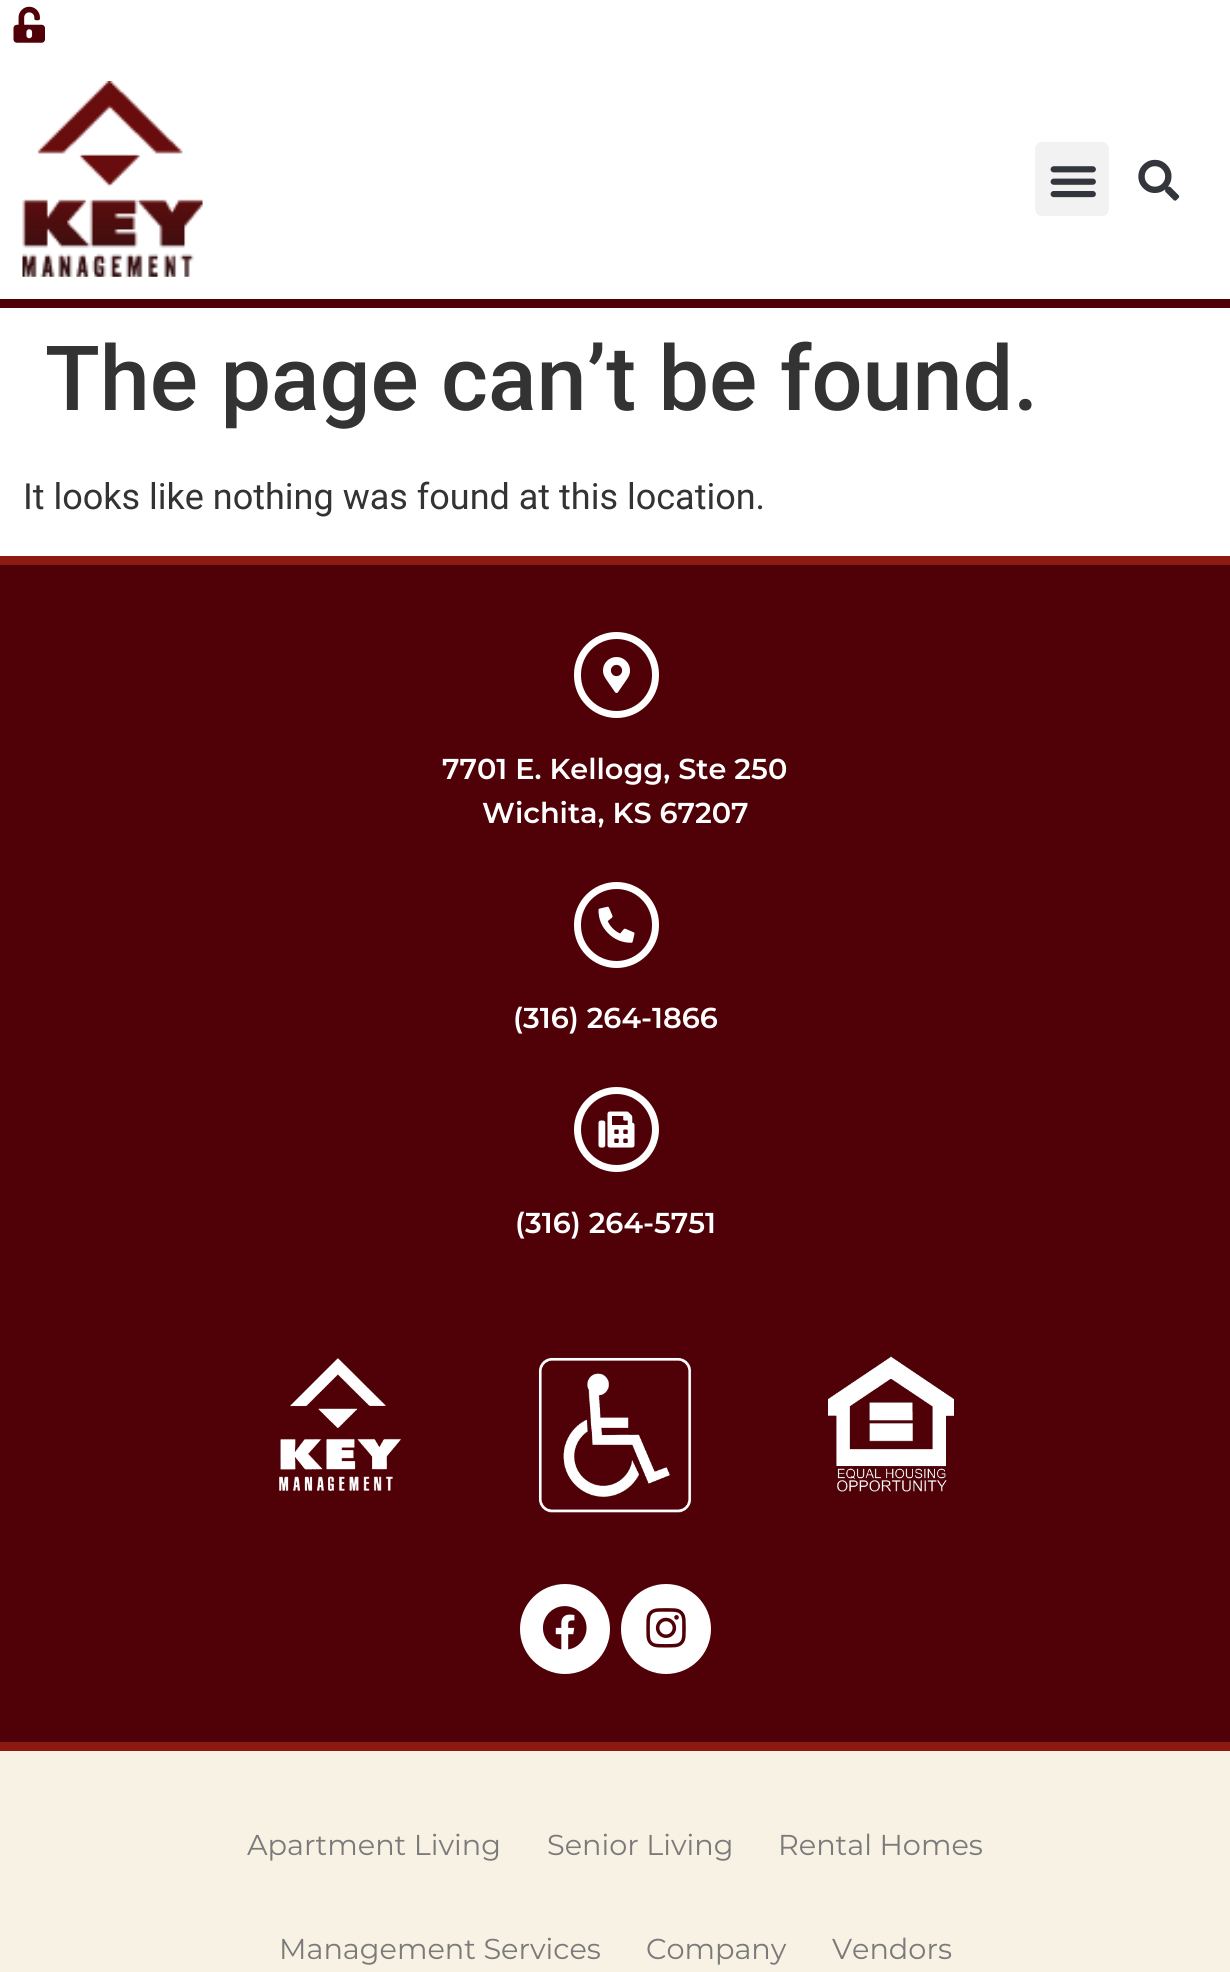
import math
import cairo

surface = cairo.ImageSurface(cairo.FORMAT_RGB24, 1230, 1972)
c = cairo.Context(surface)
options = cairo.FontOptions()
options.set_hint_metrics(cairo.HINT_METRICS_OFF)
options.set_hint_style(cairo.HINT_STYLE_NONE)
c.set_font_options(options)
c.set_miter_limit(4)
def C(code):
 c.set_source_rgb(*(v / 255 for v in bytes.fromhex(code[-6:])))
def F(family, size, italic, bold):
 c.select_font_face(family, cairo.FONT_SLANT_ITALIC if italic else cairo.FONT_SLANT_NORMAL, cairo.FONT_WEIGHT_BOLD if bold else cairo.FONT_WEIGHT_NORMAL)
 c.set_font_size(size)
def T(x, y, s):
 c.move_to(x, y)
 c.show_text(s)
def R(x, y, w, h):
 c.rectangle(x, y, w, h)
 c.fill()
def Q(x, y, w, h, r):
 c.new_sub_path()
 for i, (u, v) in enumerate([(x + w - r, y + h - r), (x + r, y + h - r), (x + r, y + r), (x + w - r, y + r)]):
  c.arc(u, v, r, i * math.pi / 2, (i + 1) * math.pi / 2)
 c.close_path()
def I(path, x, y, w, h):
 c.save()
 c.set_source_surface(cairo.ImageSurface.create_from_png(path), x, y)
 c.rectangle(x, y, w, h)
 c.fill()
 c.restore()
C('ffffff')
c.paint()
I('1.png',13,6,32,37)
C('500107')
R(0,299,1230,9)
I('2.png',22,81,181,196)
C('f2f2f2')
Q(1035,142,74,74,7)
c.fill()
I('3.png',1050,166,46,32)
I('4.png',1138,159,42,42)
F('Roboto Medium',90,0,0)
C('333333')
T(45,410,'The page can’t be found.')
F('Roboto',36,0,0)
T(23,509,'It looks like nothing was found at this location.')
C('500107')
R(0,565,1230,1177)
C('8c1a10')
R(0,556,1230,9)
Q(577.5,635.5,78,79,39)
C('ffffff')
c.set_line_width(7)
c.stroke()
I('5.png',603,657,27,36)
F('Montserrat SemiBold',28.75,0,0)
T(442,779,'7701 E. Kellogg, Ste 250')
T(482,823,'Wichita, KS 67207')
Q(577.5,885.5,78,79,39)
c.stroke()
I('6.png',598,906,37,37)
T(513,1028,'(316) 264-1866')
c.new_path()
c.arc(616.5,1129.5,39,0,2 * math.pi)
c.stroke()
I('7.png',598,1111,37,37)
T(515,1233,'(316) 264-5751')
I('8.png',279,1358,122,133)
I('9.png',538,1357,154,156)
I('10.png',828,1356,126,136)
c.arc(565,1629,45,0,2 * math.pi)
c.fill()
I('11.png',542,1606,45,44)
c.arc(666,1629,45,0,2 * math.pi)
c.fill()
I('12.png',646,1608,40,40)
C('f8f2e4')
R(0,1751,1230,221)
C('8c1a10')
R(0,1742,1230,9)
F('Montserrat',28.75,0,0)
C('7a7a7a')
T(247,1855,'Apartment Living')
T(547,1855,'Senior Living')
T(778,1855,'Rental Homes')
T(279,1959,'Management Services')
T(646,1959,'Company')
T(832,1959,'Vendors')
surface.write_to_png('o.png')
